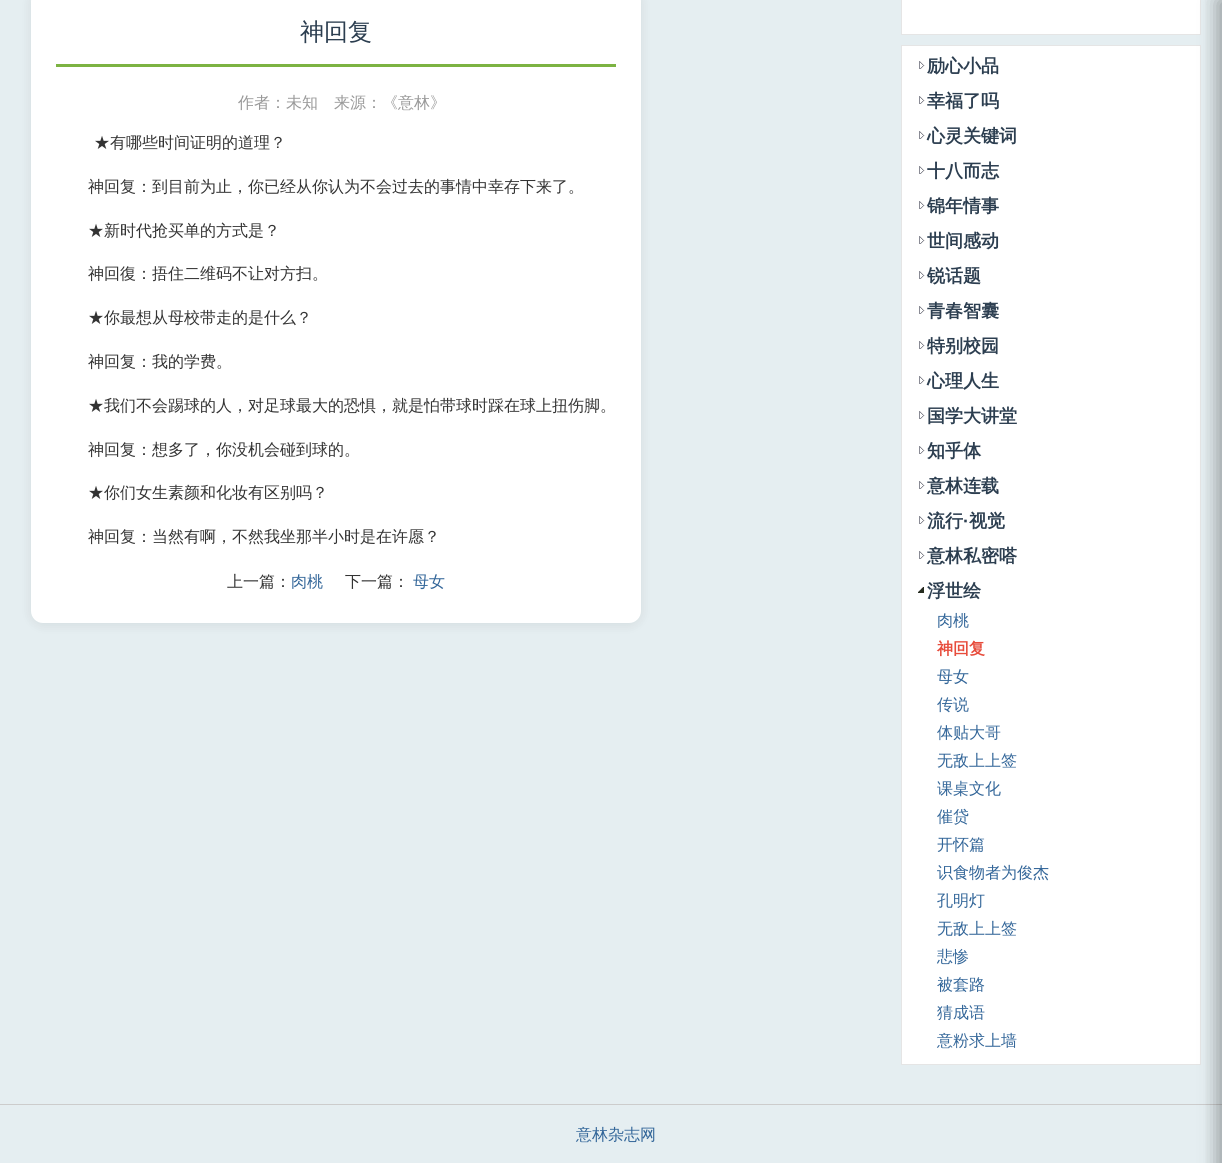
import math
import cairo

surface = cairo.ImageSurface(cairo.FORMAT_RGB24, 1232, 1163)
c = cairo.Context(surface)
options = cairo.FontOptions()
options.set_hint_metrics(cairo.HINT_METRICS_OFF)
options.set_hint_style(cairo.HINT_STYLE_NONE)
c.set_font_options(options)
c.set_miter_limit(4)
def C(code):
 c.set_source_rgb(*(v / 255 for v in bytes.fromhex(code[-6:])))
def F(family, size, italic, bold):
 c.select_font_face(family, cairo.FONT_SLANT_ITALIC if italic else cairo.FONT_SLANT_NORMAL, cairo.FONT_WEIGHT_BOLD if bold else cairo.FONT_WEIGHT_NORMAL)
 c.set_font_size(size)
def T(x, y, s):
 c.move_to(x, y)
 c.show_text(s)
def R(x, y, w, h):
 c.rectangle(x, y, w, h)
 c.fill()
def Q(x, y, w, h, r):
 c.new_sub_path()
 for i, (u, v) in enumerate([(x + w - r, y + h - r), (x + r, y + h - r), (x + r, y + r), (x + w - r, y + r)]):
  c.arc(u, v, r, i * math.pi / 2, (i + 1) * math.pi / 2)
 c.close_path()
def S(x, y, w, h, r, blur, alpha):
 c.push_group_with_content(cairo.CONTENT_ALPHA)
 c.set_operator(cairo.OPERATOR_SOURCE)
 for i in range(15, -16, -2):
  e = blur * i / 6
  if min(w, h) + 2 * e > 0:
   c.set_source_rgba(0, 0, 0, alpha * math.erfc((i - 1) / 8.5) / 2)
   Q(x - e, y - e, w + 2 * e, h + 2 * e, max(0, min(r + e + blur * .6, min(w, h) / 2 + e)))
   c.fill()
 c.mask(c.pop_group())
def I(path, x, y, w, h):
 c.save()
 c.set_source_surface(cairo.ImageSurface.create_from_png(path), x, y)
 c.rectangle(x, y, w, h)
 c.fill()
 c.restore()
C('e5eef1')
c.paint()
C('ffffff')
c.rectangle(901.5,-.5,299,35)
c.fill_preserve()
C('e5e5e5')
c.set_line_width(1)
c.stroke()
C('ffffff')
c.rectangle(901.5,45.5,299,1019)
c.fill_preserve()
C('e5e5e5')
c.stroke()
C('cccccc')
R(0,1104,1222,1)
C('000000')
S(1218,0,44,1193,0,10,.2)
C('ffffff')
R(1222,0,10,1163)
C('000000')
S(31,-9,610,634,12,6,.08)
C('ffffff')
Q(31,-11,610,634,12)
c.fill()
C('7cb342')
R(56,64,560,3)
F('WenQuanYi Zen Hei Medium',24,0,0)
C('2c3e50')
T(300,40,'神回复')
F('WenQuanYi Zen Hei Medium',16,0,0)
C('999999')
T(238,108,'作者：未知')
T(334,108,'来源：《意林》')
C('333333')
T(94,148,'★有哪些时间证明的道理？')
T(88,192,'神回复：到目前为止，你已经从你认为不会过去的事情中幸存下来了。')
T(88,236,'★新时代抢买单的方式是？')
T(88,279,'神回復：捂住二维码不让对方扫。')
T(88,323,'★你最想从母校带走的是什么？')
T(88,367,'神回复：我的学费。')
T(88,411,'★我们不会踢球的人，对足球最大的恐惧，就是怕带球时踩在球上扭伤脚。')
T(88,455,'神回复：想多了，你没机会碰到球的。')
T(88,498,'★你们女生素颜和化妆有区别吗？')
T(88,542,'神回复：当然有啊，不然我坐那半小时是在许愿？')
T(227,587,'上一篇：')
C('336699')
T(291,587,'肉桃')
C('333333')
T(345,587,'下一篇：')
C('336699')
T(413,587,'母女')
I('1.png',919,61,6,8)
F('WenQuanYi Zen Hei',18,0,1)
C('2c3e50')
T(927,72,'励心小品')
I('1.png',919,96,6,8)
T(927,107,'幸福了吗')
I('1.png',919,131,6,8)
T(927,142,'心灵关键词')
I('1.png',919,166,6,8)
T(927,177,'十八而志')
I('1.png',919,201,6,8)
T(927,212,'锦年情事')
I('1.png',919,236,6,8)
T(927,247,'世间感动')
I('1.png',919,271,6,8)
T(927,282,'锐话题')
I('1.png',919,306,6,8)
T(927,317,'青春智囊')
I('1.png',919,341,6,8)
T(927,352,'特别校园')
I('1.png',919,376,6,8)
T(927,387,'心理人生')
I('1.png',919,411,6,8)
T(927,422,'国学大讲堂')
I('1.png',919,446,6,8)
T(927,457,'知乎体')
I('1.png',919,481,6,8)
T(927,492,'意林连载')
I('1.png',919,516,6,8)
T(927,527,'流行')
F('Liberation Sans',18,0,1)
T(963,527,'·')
F('WenQuanYi Zen Hei',18,0,1)
T(969,527,'视觉')
I('1.png',919,551,6,8)
T(927,562,'意林私密嗒')
I('2.png',918,587,6,6)
T(927,597,'浮世绘')
F('WenQuanYi Zen Hei Medium',16,0,0)
C('336699')
T(937,626,'肉桃')
F('WenQuanYi Zen Hei',16,0,1)
C('e74c3c')
T(937,654,'神回复')
F('WenQuanYi Zen Hei Medium',16,0,0)
C('336699')
T(937,682,'母女')
T(937,710,'传说')
T(937,738,'体贴大哥')
T(937,766,'无敌上上签')
T(937,794,'课桌文化')
T(937,822,'催贷')
T(937,850,'开怀篇')
T(937,878,'识食物者为俊杰')
T(937,906,'孔明灯')
T(937,934,'无敌上上签')
T(937,962,'悲惨')
T(937,990,'被套路')
T(937,1018,'猜成语')
T(937,1046,'意粉求上墙')
c.save()
c.rectangle(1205,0,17,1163)
c.clip()
C('000000')
S(1218,0,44,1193,0,10,.2)
c.restore()
T(576,1140,'意林杂志网')
surface.write_to_png('o.png')
